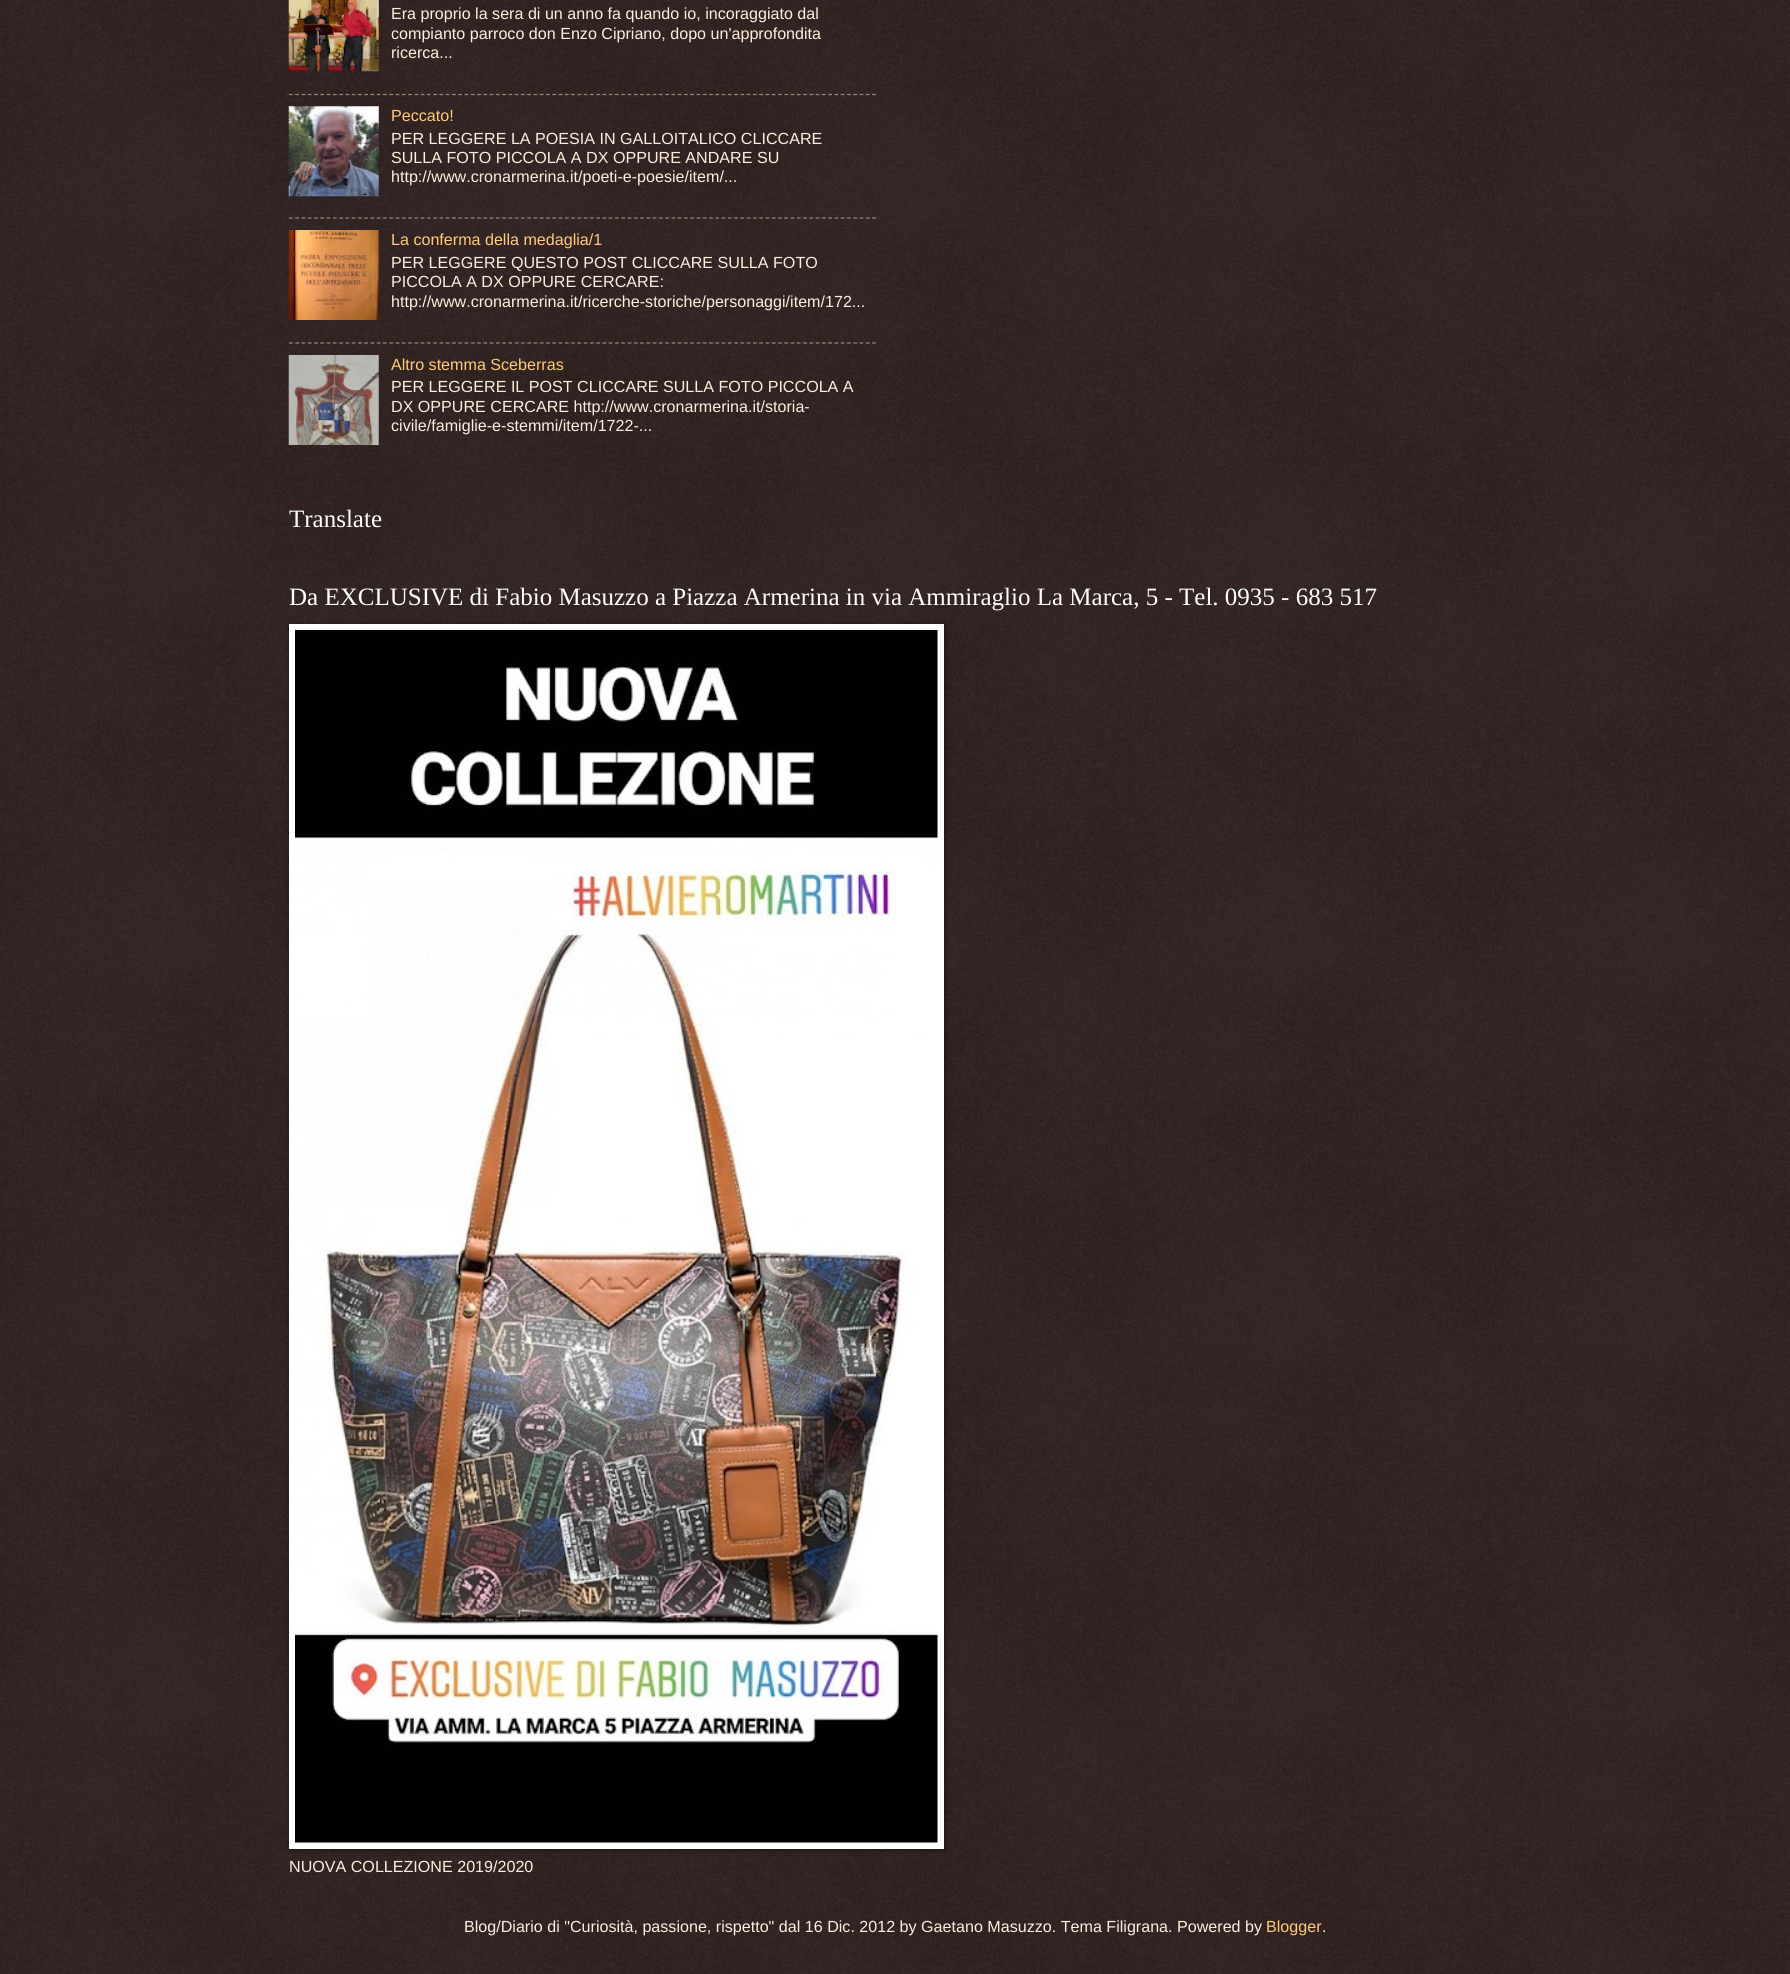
import math
import cairo

surface = cairo.ImageSurface(cairo.FORMAT_RGB24, 1790, 1974)
c = cairo.Context(surface)
options = cairo.FontOptions()
options.set_hint_metrics(cairo.HINT_METRICS_OFF)
options.set_hint_style(cairo.HINT_STYLE_NONE)
c.set_font_options(options)
c.set_miter_limit(4)
def C(code):
 c.set_source_rgb(*(v / 255 for v in bytes.fromhex(code[-6:])))
def F(family, size, italic, bold):
 c.select_font_face(family, cairo.FONT_SLANT_ITALIC if italic else cairo.FONT_SLANT_NORMAL, cairo.FONT_WEIGHT_BOLD if bold else cairo.FONT_WEIGHT_NORMAL)
 c.set_font_size(size)
def T(x, y, s):
 c.move_to(x, y)
 c.show_text(s)
def R(x, y, w, h):
 c.rectangle(x, y, w, h)
 c.fill()
def Q(x, y, w, h, r):
 c.new_sub_path()
 for i, (u, v) in enumerate([(x + w - r, y + h - r), (x + r, y + h - r), (x + r, y + r), (x + w - r, y + r)]):
  c.arc(u, v, r, i * math.pi / 2, (i + 1) * math.pi / 2)
 c.close_path()
def S(x, y, w, h, r, blur, alpha):
 c.push_group_with_content(cairo.CONTENT_ALPHA)
 c.set_operator(cairo.OPERATOR_SOURCE)
 for i in range(15, -16, -2):
  e = blur * i / 6
  if min(w, h) + 2 * e > 0:
   c.set_source_rgba(0, 0, 0, alpha * math.erfc((i - 1) / 8.5) / 2)
   Q(x - e, y - e, w + 2 * e, h + 2 * e, max(0, min(r + e + blur * .6, min(w, h) / 2 + e)))
   c.fill()
 c.mask(c.pop_group())
def I(path, x, y, w, h):
 c.save()
 c.set_source_surface(cairo.ImageSurface.create_from_png(path), x, y)
 c.rectangle(x, y, w, h)
 c.fill()
 c.restore()
C('110000')
c.paint()
I('1.png',0,0,1790,1974)
I('2.png',288,0,91,72)
F('Liberation Sans',16.1,0,0)
C('ffeedd')
T(391,19,'Era proprio la sera di un anno fa quando io, incoraggiato dal')
T(391,39,'compianto parroco don Enzo Cipriano, dopo un\'approfondita')
T(391,58,'ricerca...')
c.new_path()
c.move_to(289,94.5)
c.line_to(876,94.5)
C('998877')
c.set_line_width(1.2)
c.set_dash([3.75,2.52])
c.stroke()
I('3.png',288,106,91,91)
C('ffcc77')
T(391,121,'Peccato!')
C('ffeedd')
T(391,144,'PER LEGGERE LA POESIA IN GALLOITALICO CLICCARE')
T(391,163,'SULLA FOTO PICCOLA A DX OPPURE ANDARE SU')
T(391,182,'http://www.cronarmerina.it/poeti-e-poesie/item/...')
c.new_path()
c.move_to(289,218)
c.line_to(876,218)
C('998877')
c.stroke()
I('4.png',288,230,91,90)
C('ffcc77')
T(391,245,'La conferma della medaglia/1')
C('ffeedd')
T(391,268,'PER LEGGERE QUESTO POST CLICCARE SULLA FOTO')
T(391,287,'PICCOLA A DX OPPURE CERCARE:')
T(391,307,'http://www.cronarmerina.it/ricerche-storiche/personaggi/item/172...')
c.new_path()
c.move_to(289,343)
c.line_to(876,343)
C('998877')
c.stroke()
I('5.png',288,355,91,90)
C('ffcc77')
T(391,370,'Altro stemma Sceberras')
C('ffeedd')
T(391,392,'PER LEGGERE IL POST CLICCARE SULLA FOTO PICCOLA A')
T(391,412,'DX OPPURE CERCARE http://www.cronarmerina.it/storia-')
T(391,431,'civile/famiglie-e-stemmi/item/1722-...')
F('Liberation Serif',25,0,0)
C('ffffff')
T(289,527,'Translate')
T(289,605,'Da EXCLUSIVE di Fabio Masuzzo a Piazza Armerina in via Ammiraglio La Marca, 5 - Tel. 0935 - 683 517')
C('000000')
S(290,625,655,1225,0,3,.5)
C('ffffff')
R(289,624,655,1225)
I('6.png',295,630,643,1213)
F('Liberation Sans',16.1,0,0)
C('ffeedd')
T(289,1872,'NUOVA COLLEZIONE 2019/2020')
T(464,1932,'Blog/Diario di "Curiosità, passione, rispetto" dal 16 Dic. 2012 by Gaetano Masuzzo. Tema Filigrana. Powered by')
C('ffcc77')
T(1266,1932,'Blogger')
C('ffeedd')
T(1322,1932,'.')
surface.write_to_png('o.png')
